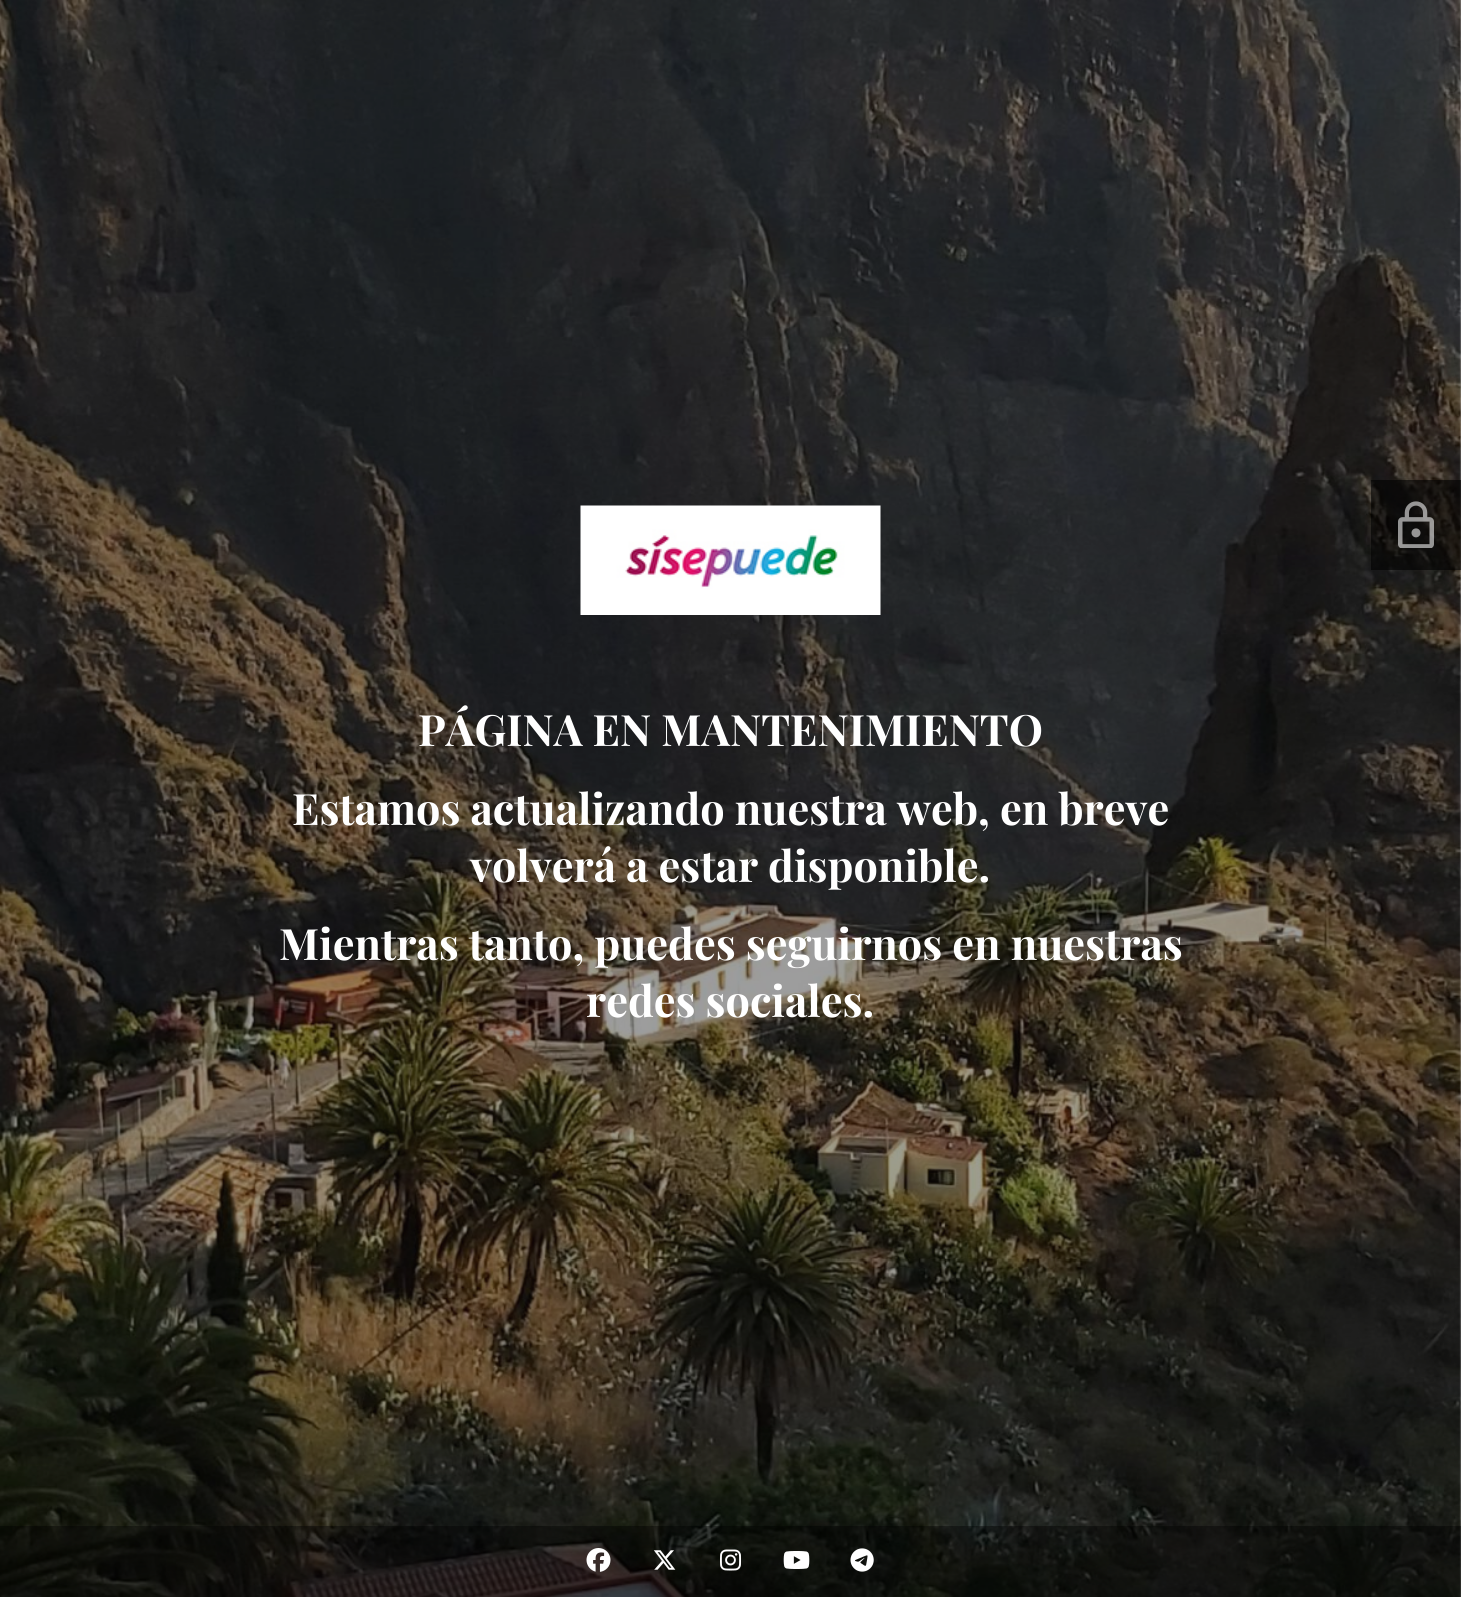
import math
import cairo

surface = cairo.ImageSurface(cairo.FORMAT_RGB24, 1461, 1597)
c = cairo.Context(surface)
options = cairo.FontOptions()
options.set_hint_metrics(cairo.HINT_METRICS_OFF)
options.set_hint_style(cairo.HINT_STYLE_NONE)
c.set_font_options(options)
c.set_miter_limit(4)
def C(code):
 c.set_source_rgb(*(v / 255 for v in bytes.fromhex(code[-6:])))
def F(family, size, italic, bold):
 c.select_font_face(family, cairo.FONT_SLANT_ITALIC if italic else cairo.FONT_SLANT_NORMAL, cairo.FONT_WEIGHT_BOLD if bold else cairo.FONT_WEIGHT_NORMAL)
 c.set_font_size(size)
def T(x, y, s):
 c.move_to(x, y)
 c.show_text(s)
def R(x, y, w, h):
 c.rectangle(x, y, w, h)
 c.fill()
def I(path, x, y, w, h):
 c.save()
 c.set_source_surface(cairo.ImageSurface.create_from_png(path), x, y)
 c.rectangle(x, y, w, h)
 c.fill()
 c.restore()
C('ffffff')
c.paint()
I('1.png',0,0,1461,1597)
c.set_source_rgba(0,0,0,0.6)
R(1371,480,90,90)
I('2.png',1398,501,36,47)
I('3.png',580,505,301,110)
F('Playfair Display',43.2,0,1)
C('ffffff')
T(418,746,'PÁGINA EN MANTENIMIENTO')
T(292,825,'Estamos actualizando nuestra web, en breve')
T(470,882,'volverá a estar disponible.')
T(279,960,'Mientras tanto, puedes seguirnos en nuestras')
T(586,1017,'redes sociales.')
c.set_source_rgba(0,0,0,0.4)
R(0,1526,1461,71)
I('4.png',586,1548,25,24)
I('5.png',653,1550,23,20)
I('6.png',720,1549,21,22)
I('7.png',783,1551,27,18)
I('8.png',850,1548,24,24)
surface.write_to_png('o.png')
